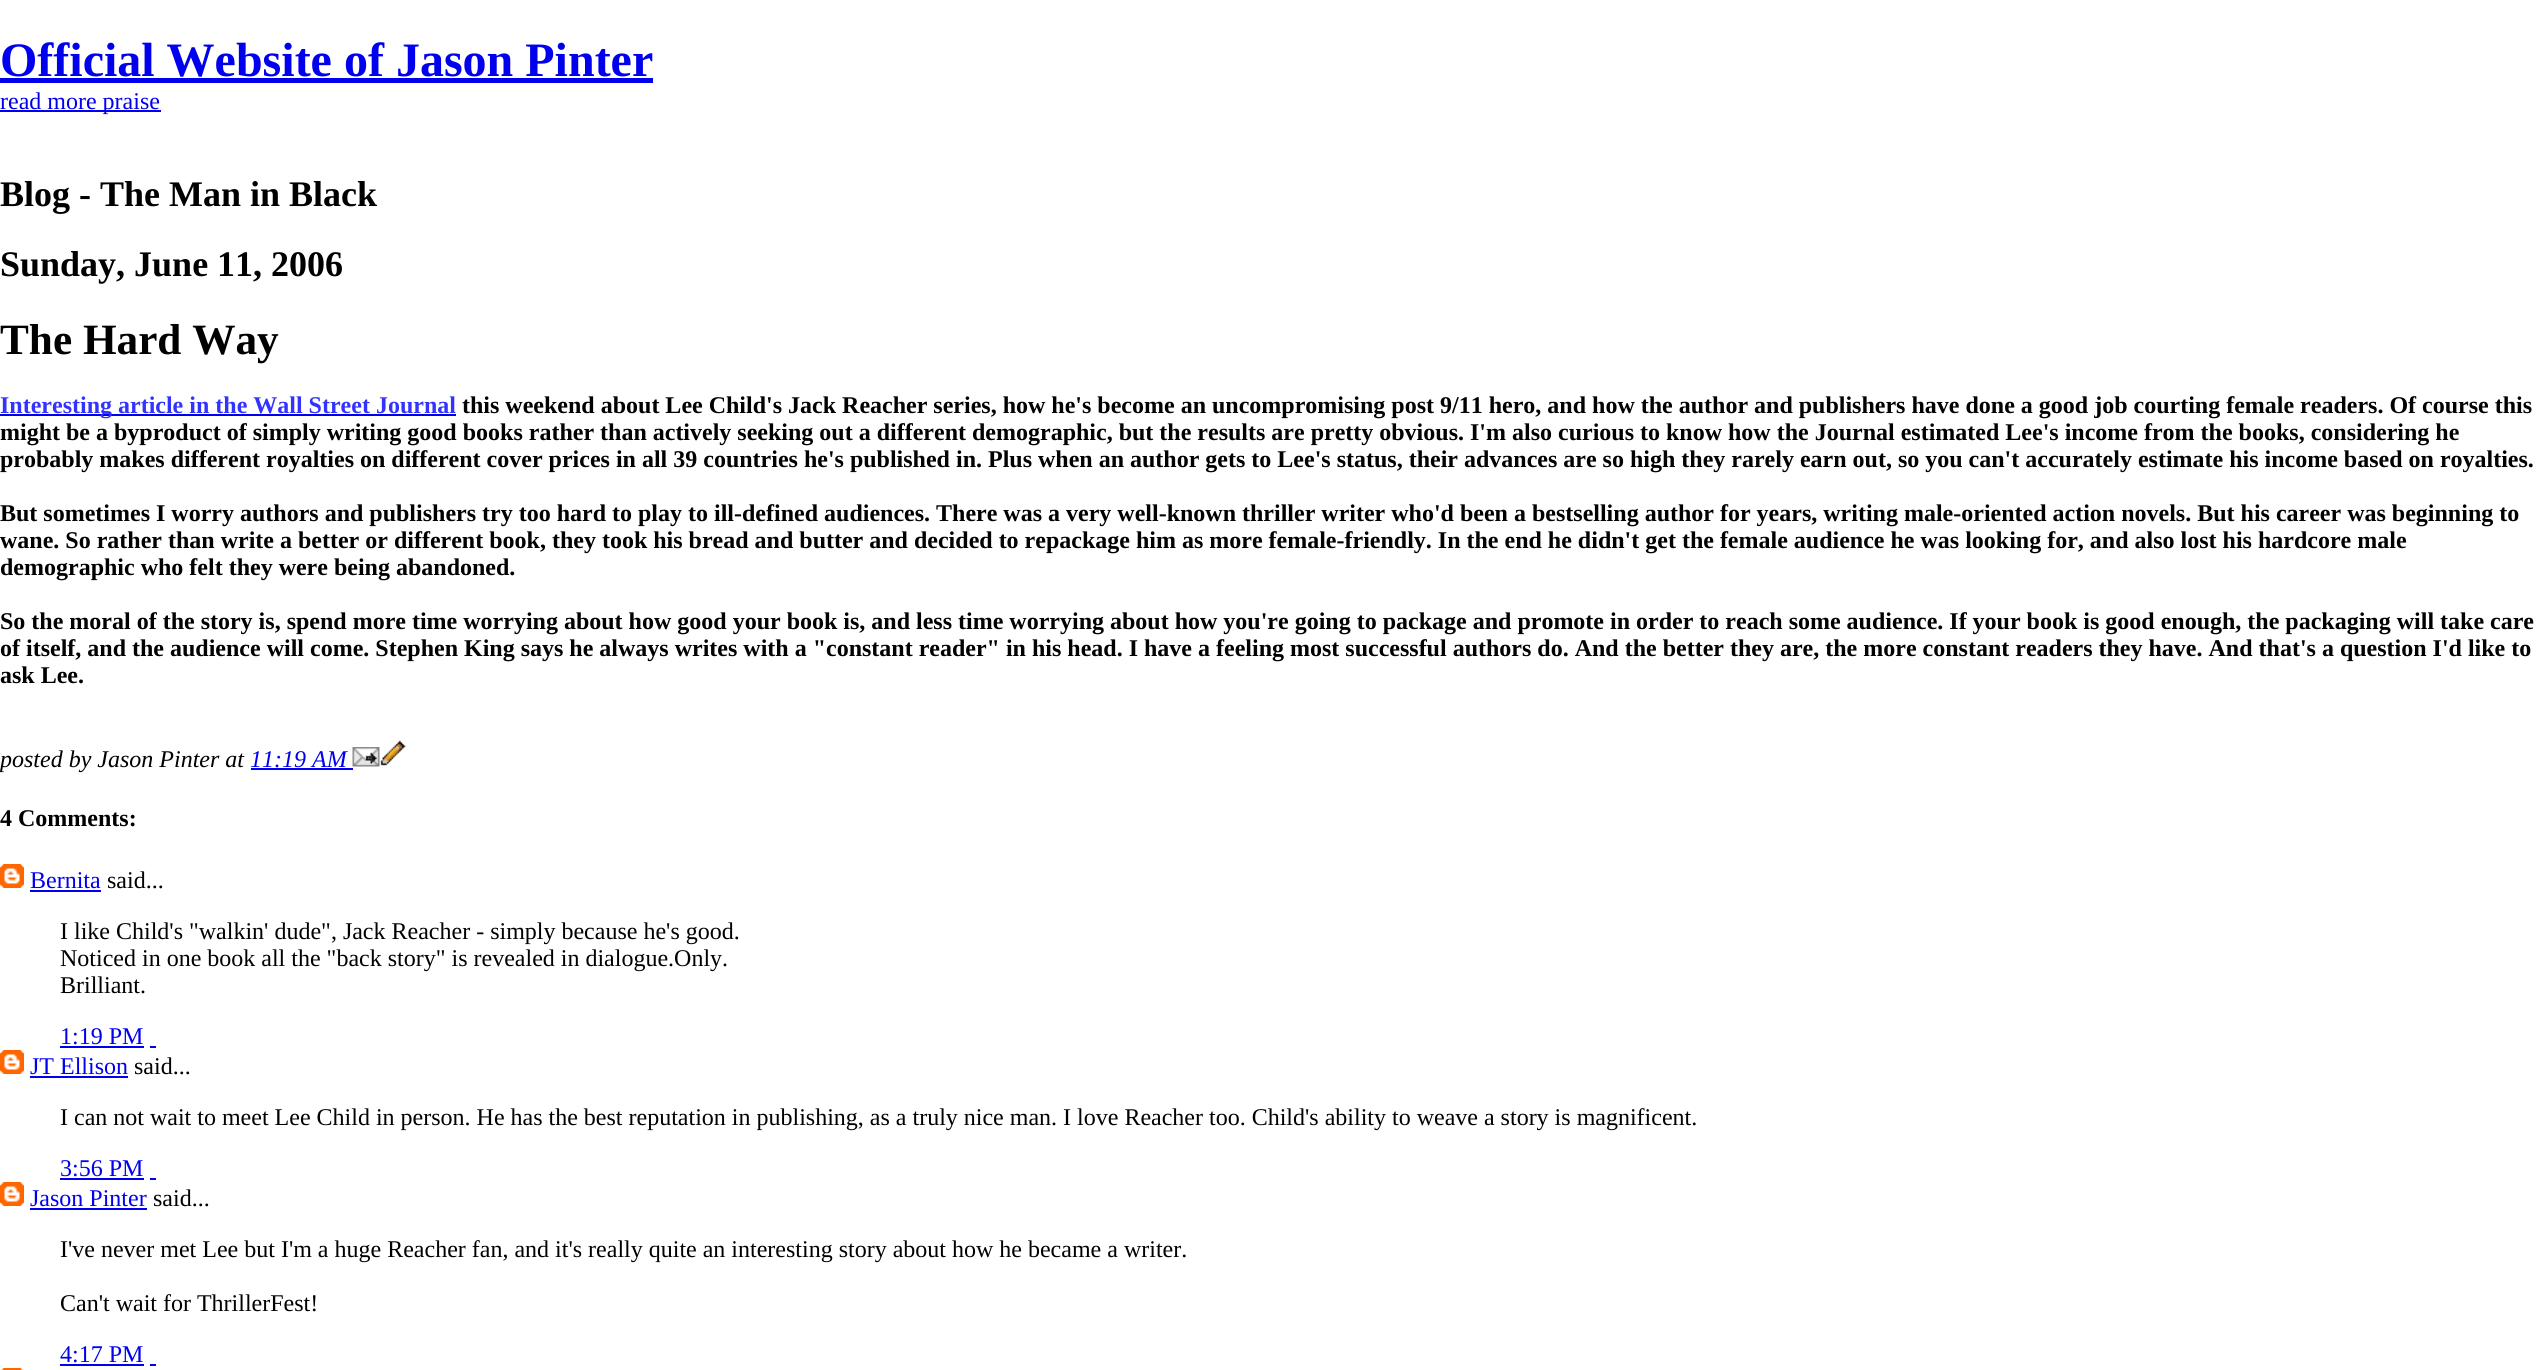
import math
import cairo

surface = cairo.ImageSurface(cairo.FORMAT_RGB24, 2538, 1370)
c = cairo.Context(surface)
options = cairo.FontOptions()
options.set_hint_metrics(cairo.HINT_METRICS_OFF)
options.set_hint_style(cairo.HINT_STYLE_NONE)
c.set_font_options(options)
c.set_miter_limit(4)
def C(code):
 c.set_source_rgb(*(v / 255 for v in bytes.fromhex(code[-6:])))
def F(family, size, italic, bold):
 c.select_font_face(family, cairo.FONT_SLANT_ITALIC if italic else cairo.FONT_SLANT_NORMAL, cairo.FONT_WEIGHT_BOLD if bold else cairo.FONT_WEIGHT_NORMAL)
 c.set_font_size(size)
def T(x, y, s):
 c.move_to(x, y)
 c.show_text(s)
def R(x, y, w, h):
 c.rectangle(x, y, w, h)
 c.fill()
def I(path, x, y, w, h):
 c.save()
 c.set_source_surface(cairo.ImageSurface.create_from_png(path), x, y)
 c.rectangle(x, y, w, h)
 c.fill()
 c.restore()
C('ffffff')
c.paint()
F('Liberation Serif',48,0,1)
C('0000ee')
T(0,76,'Official Website of Jason Pinter')
R(0,78,653,5)
R(0,110,161,2)
F('Liberation Serif',24,0,0)
T(0,109,'read more praise')
F('Liberation Serif',36,0,1)
C('000000')
T(0,206,'Blog - The Man in Black')
T(0,276,'Sunday, June 11, 2006')
F('Liberation Serif',43.25,0,1)
T(0,354,'The Hard Way')
C('0000ee')
R(0,414,456,2)
F('Liberation Serif',24,0,1)
C('3333ff')
T(0,413,'Interesting article in the Wall Street Journal')
C('000000')
T(462,413,'this weekend about Lee Child\'s Jack Reacher series, how he\'s become an uncompromising post 9/11 hero, and how the author and publishers have done a good job courting female readers. Of course this')
T(0,440,'might be a byproduct of simply writing good books rather than actively seeking out a different demographic, but the results are pretty obvious. I\'m also curious to know how the Journal estimated Lee\'s income from the books, considering he')
T(0,467,'probably makes different royalties on different cover prices in all 39 countries he\'s published in. Plus when an author gets to Lee\'s status, their advances are so high they rarely earn out, so you can\'t accurately estimate his income based on royalties.')
T(0,521,'But sometimes I worry authors and publishers try too hard to play to ill-defined audiences. There was a very well-known thriller writer who\'d been a bestselling author for years, writing male-oriented action novels. But his career was beginning to')
T(0,548,'wane. So rather than write a better or different book, they took his bread and butter and decided to repackage him as more female-friendly. In the end he didn\'t get the female audience he was looking for, and also lost his hardcore male')
T(0,575,'demographic who felt they were being abandoned.')
T(0,629,'So the moral of the story is, spend more time worrying about how good your book is, and less time worrying about how you\'re going to package and promote in order to reach some audience. If your book is good enough, the packaging will take care')
T(0,656,'of itself, and the audience will come. Stephen King says he always writes with a "constant reader" in his head. I have a feeling most successful authors do. And the better they are, the more constant readers they have. And that\'s a question I\'d like to')
T(0,683,'ask Lee.')
F('Liberation Serif',24,1,0)
T(0,767,'posted by Jason Pinter at')
C('0000ee')
T(250,767,'11:19 AM')
R(251,768,102,2)
I('1.png',352,747,28,20)
I('2.png',380,740,26,26)
F('Liberation Serif',24,0,1)
C('000000')
T(0,826,'4 Comments:')
I('3.png',0,864,24,24)
F('Liberation Serif',24,0,0)
C('0000ee')
T(30,888,'Bernita')
R(30,890,71,2)
C('000000')
T(107,888,'said...')
T(60,939,'I like Child\'s "walkin\' dude", Jack Reacher - simply because he\'s good.')
T(60,966,'Noticed in one book all the "back story" is revealed in dialogue.Only.')
T(60,993,'Brilliant.')
C('0000ee')
T(60,1044,'1:19 PM')
R(60,1046,84,2)
R(150,1046,6,2)
I('3.png',0,1050,24,24)
T(30,1074,'JT Ellison')
R(30,1076,98,2)
C('000000')
T(134,1074,'said...')
T(60,1125,'I can not wait to meet Lee Child in person. He has the best reputation in publishing, as a truly nice man. I love Reacher too. Child\'s ability to weave a story is magnificent.')
C('0000ee')
T(60,1176,'3:56 PM')
R(60,1178,84,2)
R(150,1178,6,2)
I('3.png',0,1182,24,24)
T(30,1206,'Jason Pinter')
R(30,1208,117,2)
C('000000')
T(153,1206,'said...')
T(60,1257,'I\'ve never met Lee but I\'m a huge Reacher fan, and it\'s really quite an interesting story about how he became a writer.')
T(60,1311,'Can\'t wait for ThrillerFest!')
C('0000ee')
T(60,1362,'4:17 PM')
R(60,1364,84,2)
R(150,1364,6,2)
I('4.png',1,1368,22,2)
surface.write_to_png('o.png')
